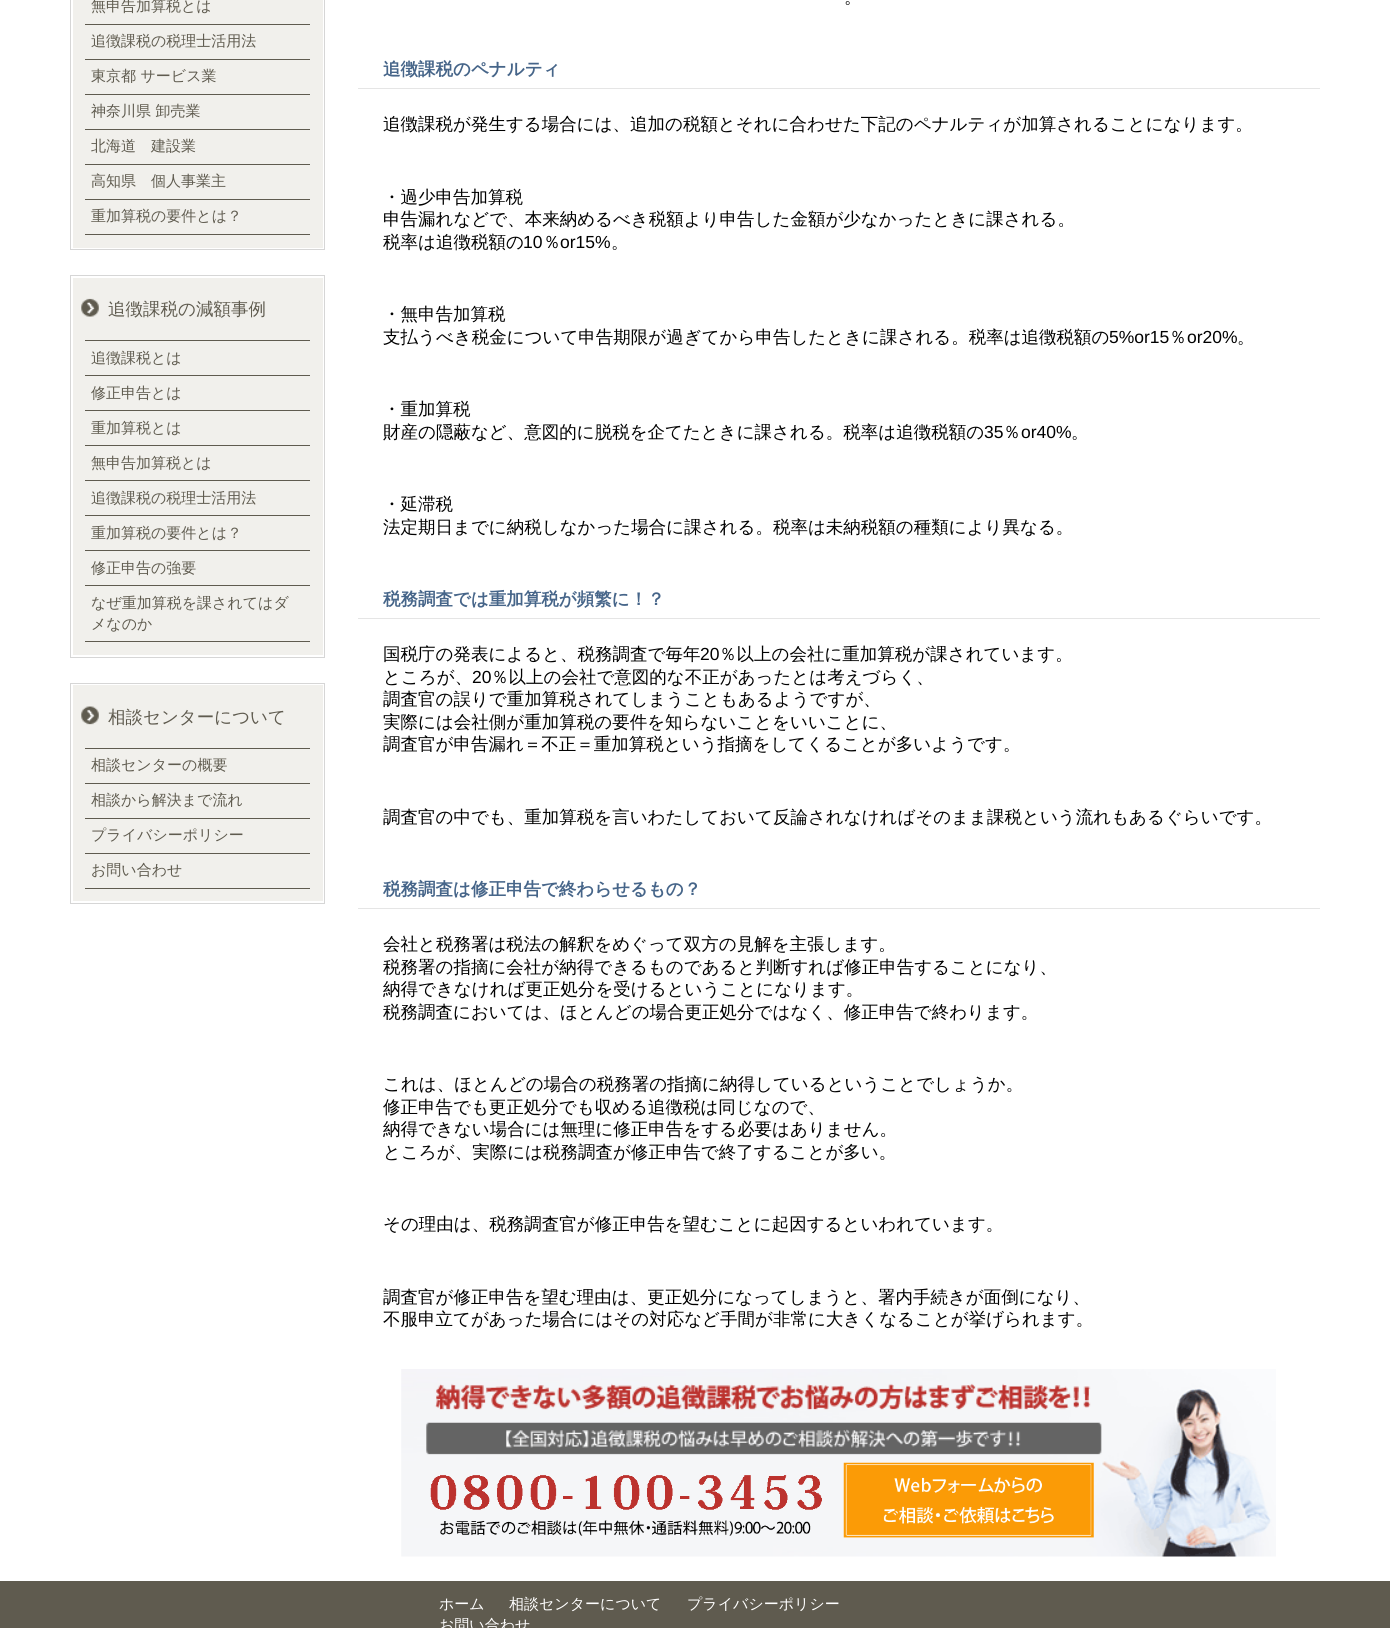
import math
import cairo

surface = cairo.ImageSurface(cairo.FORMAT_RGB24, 1390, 1628)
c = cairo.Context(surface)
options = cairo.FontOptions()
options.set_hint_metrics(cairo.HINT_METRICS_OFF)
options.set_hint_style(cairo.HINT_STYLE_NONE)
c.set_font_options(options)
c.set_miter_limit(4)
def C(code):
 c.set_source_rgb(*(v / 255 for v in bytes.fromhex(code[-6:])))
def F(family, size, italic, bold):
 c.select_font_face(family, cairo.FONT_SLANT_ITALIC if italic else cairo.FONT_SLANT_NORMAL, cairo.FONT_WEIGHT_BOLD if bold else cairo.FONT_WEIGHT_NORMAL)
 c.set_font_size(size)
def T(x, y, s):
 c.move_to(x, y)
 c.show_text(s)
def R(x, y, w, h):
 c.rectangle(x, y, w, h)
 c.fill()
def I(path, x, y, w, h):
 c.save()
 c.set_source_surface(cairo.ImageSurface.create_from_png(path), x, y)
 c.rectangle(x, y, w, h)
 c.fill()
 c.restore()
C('ffffff')
c.paint()
c.rectangle(70.5,-.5,254,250)
C('d6d6d6')
c.set_line_width(1)
c.stroke()
C('f1f0ec')
R(73,0,250,248)
C('5f5b4f')
R(85,24,225,1)
F('WenQuanYi Zen Hei Medium',15,0,0)
T(91,11,'無申告加算税とは')
R(85,59,225,1)
T(91,46,'追徴課税の税理士活用法')
R(85,94,225,1)
T(91,81,'東京都 サービス業')
R(85,129,225,1)
T(91,116,'神奈川県 卸売業')
R(85,164,225,1)
T(91,151,'北海道　建設業')
R(85,199,225,1)
T(91,186,'高知県　個人事業主')
R(85,234,225,1)
T(91,221,'重加算税の要件とは？')
c.rectangle(70.5,275.5,254,382)
C('d6d6d6')
c.stroke()
C('f1f0ec')
R(73,278,250,377)
I('1.png',81,298,18,19)
F('WenQuanYi Zen Hei Medium',17.5,0,0)
C('5f5b4f')
T(108,315,'追徴課税の減額事例')
R(85,340,225,1)
R(85,375,225,1)
F('WenQuanYi Zen Hei Medium',15,0,0)
T(91,363,'追徴課税とは')
R(85,410,225,1)
T(91,398,'修正申告とは')
R(85,445,225,1)
T(91,433,'重加算税とは')
R(85,480,225,1)
T(91,468,'無申告加算税とは')
R(85,515,225,1)
T(91,503,'追徴課税の税理士活用法')
R(85,550,225,1)
T(91,538,'重加算税の要件とは？')
R(85,585,225,1)
T(91,573,'修正申告の強要')
R(85,641,225,1)
T(91,608,'なぜ重加算税を課されてはダ')
T(91,629,'メなのか')
c.rectangle(70.5,683.5,254,220)
C('d6d6d6')
c.stroke()
C('f1f0ec')
R(73,685,250,216)
I('2.png',81,706,18,19)
F('WenQuanYi Zen Hei Medium',17.5,0,0)
C('5f5b4f')
T(108,723,'相談センターについて')
R(85,748,225,1)
R(85,783,225,1)
F('WenQuanYi Zen Hei Medium',15,0,0)
T(91,770,'相談センターの概要')
R(85,818,225,1)
T(91,805,'相談から解決まで流れ')
R(85,853,225,1)
T(91,840,'プライバシーポリシー')
R(85,888,225,1)
T(91,875,'お問い合わせ')
F('WenQuanYi Zen Hei Medium',17.5,0,0)
C('000000')
T(844,3,'。')
C('e5e5e5')
R(358,88,962,1)
F('WenQuanYi Zen Hei',17.5,0,1)
C('466589')
T(383,75,'追徴課税のペナルティ')
F('WenQuanYi Zen Hei Medium',17.5,0,0)
C('000000')
T(383,130,'追徴課税が発生する場合には、追加の税額とそれに合わせた下記のペナルティが加算されることになります。')
T(383,203,'・過少申告加算税')
T(383,225,'申告漏れなどで、本来納めるべき税額より申告した金額が少なかったときに課される。')
T(383,248,'税率は追徴税額の')
F('Liberation Sans',17.5,0,0)
T(523,248,'10')
F('WenQuanYi Zen Hei Medium',17.5,0,0)
T(543,248,'％')
F('Liberation Sans',17.5,0,0)
T(560,248,'or15%')
F('WenQuanYi Zen Hei Medium',17.5,0,0)
T(611,248,'。')
T(383,320,'・無申告加算税')
T(383,343,'支払うべき税金について申告期限が過ぎてから申告したときに課される。税率は追徴税額の')
F('Liberation Sans',17.5,0,0)
T(1109,343,'5%or15')
F('WenQuanYi Zen Hei Medium',17.5,0,0)
T(1169,343,'％')
F('Liberation Sans',17.5,0,0)
T(1187,343,'or20%')
F('WenQuanYi Zen Hei Medium',17.5,0,0)
T(1237,343,'。')
T(383,415,'・重加算税')
T(383,438,'財産の隠蔽など、意図的に脱税を企てたときに課される。税率は追徴税額の')
F('Liberation Sans',17.5,0,0)
T(984,438,'35')
F('WenQuanYi Zen Hei Medium',17.5,0,0)
T(1003,438,'％')
F('Liberation Sans',17.5,0,0)
T(1021,438,'or40%')
F('WenQuanYi Zen Hei Medium',17.5,0,0)
T(1071,438,'。')
T(383,510,'・延滞税')
T(383,533,'法定期日までに納税しなかった場合に課される。税率は未納税額の種類により異なる。')
C('e5e5e5')
R(358,618,962,1)
F('WenQuanYi Zen Hei',17.5,0,1)
C('466589')
T(383,605,'税務調査では重加算税が頻繁に！？')
F('WenQuanYi Zen Hei Medium',17.5,0,0)
C('000000')
T(383,660,'国税庁の発表によると、税務調査で毎年')
F('Liberation Sans',17.5,0,0)
T(700,660,'20')
F('WenQuanYi Zen Hei Medium',17.5,0,0)
T(719,660,'％以上の会社に重加算税が課されています。')
T(383,683,'ところが、')
F('Liberation Sans',17.5,0,0)
T(472,683,'20')
F('WenQuanYi Zen Hei Medium',17.5,0,0)
T(491,683,'％以上の会社で意図的な不正があったとは考えづらく、')
T(383,705,'調査官の誤りで重加算税されてしまうこともあるようですが、')
T(383,728,'実際には会社側が重加算税の要件を知らないことをいいことに、')
T(383,750,'調査官が申告漏れ＝不正＝重加算税という指摘をしてくることが多いようです。')
T(383,823,'調査官の中でも、重加算税を言いわたしておいて反論されなければそのまま課税という流れもあるぐらいです。')
C('e5e5e5')
R(358,908,962,1)
F('WenQuanYi Zen Hei',17.5,0,1)
C('466589')
T(383,895,'税務調査は修正申告で終わらせるもの？')
F('WenQuanYi Zen Hei Medium',17.5,0,0)
C('000000')
T(383,950,'会社と税務署は税法の解釈をめぐって双方の見解を主張します。')
T(383,973,'税務署の指摘に会社が納得できるものであると判断すれば修正申告することになり、')
T(383,995,'納得できなければ更正処分を受けるということになります。')
T(383,1018,'税務調査においては、ほとんどの場合更正処分ではなく、修正申告で終わります。')
T(383,1090,'これは、ほとんどの場合の税務署の指摘に納得しているということでしょうか。')
T(383,1113,'修正申告でも更正処分でも収める追徴税は同じなので、')
T(383,1135,'納得できない場合には無理に修正申告をする必要はありません。')
T(383,1158,'ところが、実際には税務調査が修正申告で終了することが多い。')
T(383,1230,'その理由は、税務調査官が修正申告を望むことに起因するといわれています。')
T(383,1303,'調査官が修正申告を望む理由は、更正処分になってしまうと、署内手続きが面倒になり、')
T(383,1325,'不服申立てがあった場合にはその対応など手間が非常に大きくなることが挙げられます。')
I('3.png',401,1369,875,188)
I('4.png',430,1475,392,61)
I('5.png',843,1462,251,76)
C('5f5b4f')
R(0,1581,1390,47)
F('WenQuanYi Zen Hei Medium',15,0,0)
C('ffffff')
T(439,1609,'ホーム')
T(509,1609,'相談センターについて')
T(687,1609,'プライバシーポリシー')
T(439,1630,'お問い合わせ')
surface.write_to_png('o.png')
